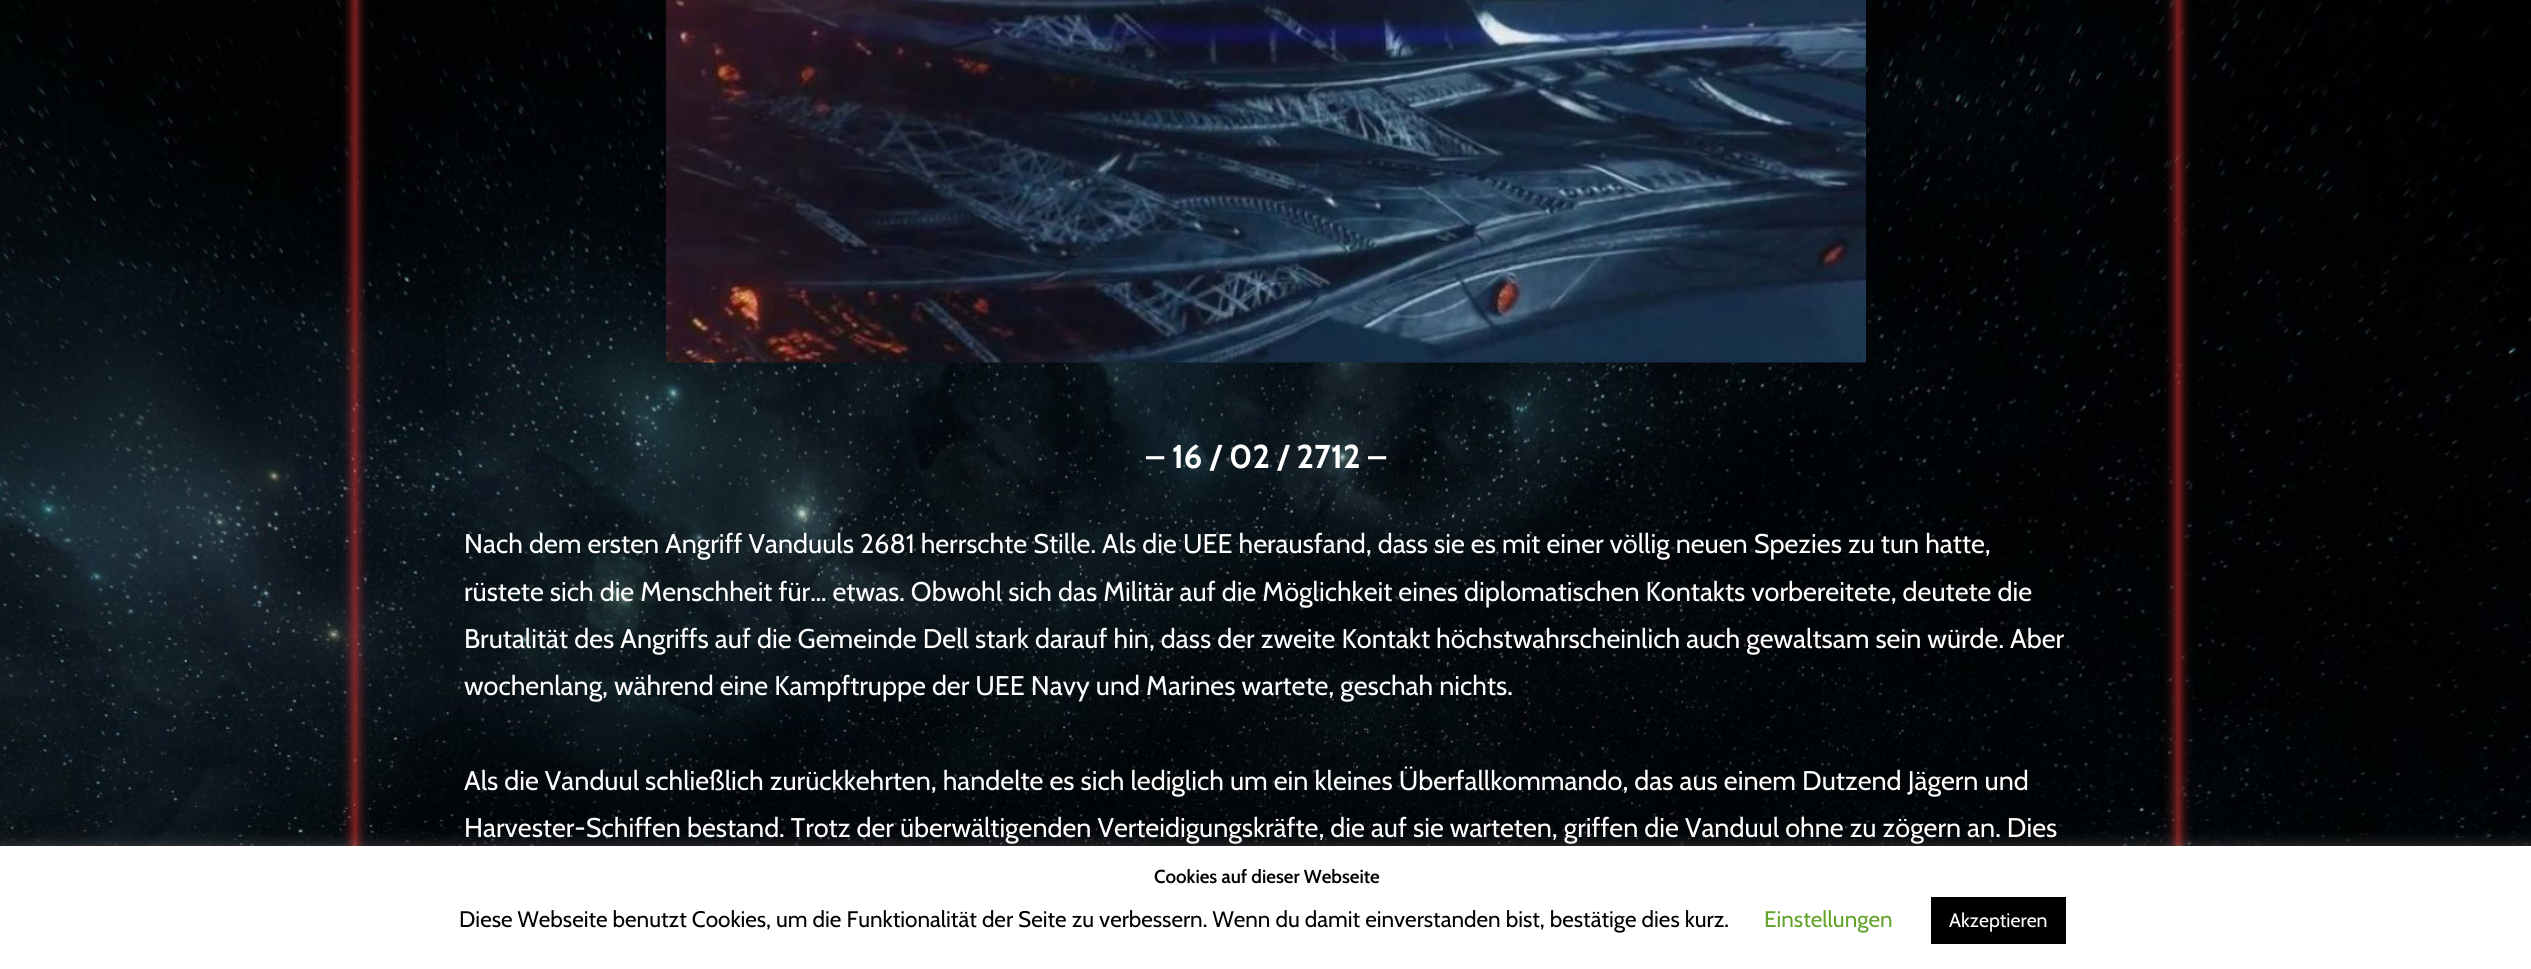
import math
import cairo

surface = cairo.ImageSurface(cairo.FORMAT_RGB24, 2531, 969)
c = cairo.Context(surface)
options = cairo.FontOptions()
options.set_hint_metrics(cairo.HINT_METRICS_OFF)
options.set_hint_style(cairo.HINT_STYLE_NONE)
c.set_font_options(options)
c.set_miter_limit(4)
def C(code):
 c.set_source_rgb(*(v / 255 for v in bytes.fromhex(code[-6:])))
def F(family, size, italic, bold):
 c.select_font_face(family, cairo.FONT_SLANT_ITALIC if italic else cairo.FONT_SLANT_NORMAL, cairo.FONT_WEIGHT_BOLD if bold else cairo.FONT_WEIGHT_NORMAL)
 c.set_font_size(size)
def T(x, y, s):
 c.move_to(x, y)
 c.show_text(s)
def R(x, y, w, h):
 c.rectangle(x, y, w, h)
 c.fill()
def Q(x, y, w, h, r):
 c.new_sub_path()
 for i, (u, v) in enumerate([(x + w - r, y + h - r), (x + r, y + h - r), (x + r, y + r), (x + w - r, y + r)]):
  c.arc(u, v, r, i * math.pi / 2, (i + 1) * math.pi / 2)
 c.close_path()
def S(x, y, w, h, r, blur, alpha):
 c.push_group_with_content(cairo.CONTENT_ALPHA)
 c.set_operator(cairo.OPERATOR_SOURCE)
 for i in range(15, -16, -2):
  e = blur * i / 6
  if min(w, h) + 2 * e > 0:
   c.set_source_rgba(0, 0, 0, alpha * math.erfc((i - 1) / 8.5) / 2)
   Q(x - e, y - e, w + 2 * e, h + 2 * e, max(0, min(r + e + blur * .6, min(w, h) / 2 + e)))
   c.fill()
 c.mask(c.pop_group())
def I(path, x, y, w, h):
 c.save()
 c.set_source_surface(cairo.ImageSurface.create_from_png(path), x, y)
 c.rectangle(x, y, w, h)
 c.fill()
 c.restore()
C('ffffff')
c.paint()
I('1.png',0,0,2531,846)
C('dd3333')
S(354,-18,2,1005,0,6,1)
I('2.png',666,0,1200,363)
F('Cabin',33,0,1)
C('ffffff')
T(1146,468,'– 16 / 02 / 2712 –')
F('Cabin',27,0,0)
T(464,553,'Nach dem ersten Angriff Vanduuls 2681 herrschte Stille. Als die UEE herausfand, dass sie es mit einer völlig neuen Spezies zu tun hatte,')
T(464,601,'rüstete sich die Menschheit für… etwas. Obwohl sich das Militär auf die Möglichkeit eines diplomatischen Kontakts vorbereitete, deutete die')
T(464,648,'Brutalität des Angriffs auf die Gemeinde Dell stark darauf hin, dass der zweite Kontakt höchstwahrscheinlich auch gewaltsam sein würde. Aber')
T(464,695,'wochenlang, während eine Kampftruppe der UEE Navy und Marines wartete, geschah nichts.')
T(464,790,'Als die Vanduul schließlich zurückkehrten, handelte es sich lediglich um ein kleines Überfallkommando, das aus einem Dutzend Jägern und')
T(464,837,'Harvester-Schiffen bestand. Trotz der überwältigenden Verteidigungskräfte, die auf sie warteten, griffen die Vanduul ohne zu zögern an. Dies')
C('dd3333')
S(2177,-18,2,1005,0,6,1)
C('acabab')
S(0,845,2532,123,0,7.5,.3)
C('ffffff')
R(0,846,2531,123)
F('Cabin SemiBold',18.75,0,0)
C('000000')
T(1154,883,'Cookies auf dieser Webseite')
F('Cabin',22.5,0,0)
T(459,927,'Diese Webseite benutzt Cookies, um die Funktionalität der Seite zu verbessern. Wenn du damit einverstanden bist, bestätige dies kurz.')
C('62a329')
T(1764,927,'Einstellungen')
C('000000')
R(1931,897,135,47)
F('Cabin',19.5,0,0)
C('ffffff')
T(1949,927,'Akzeptieren')
surface.write_to_png('o.png')
